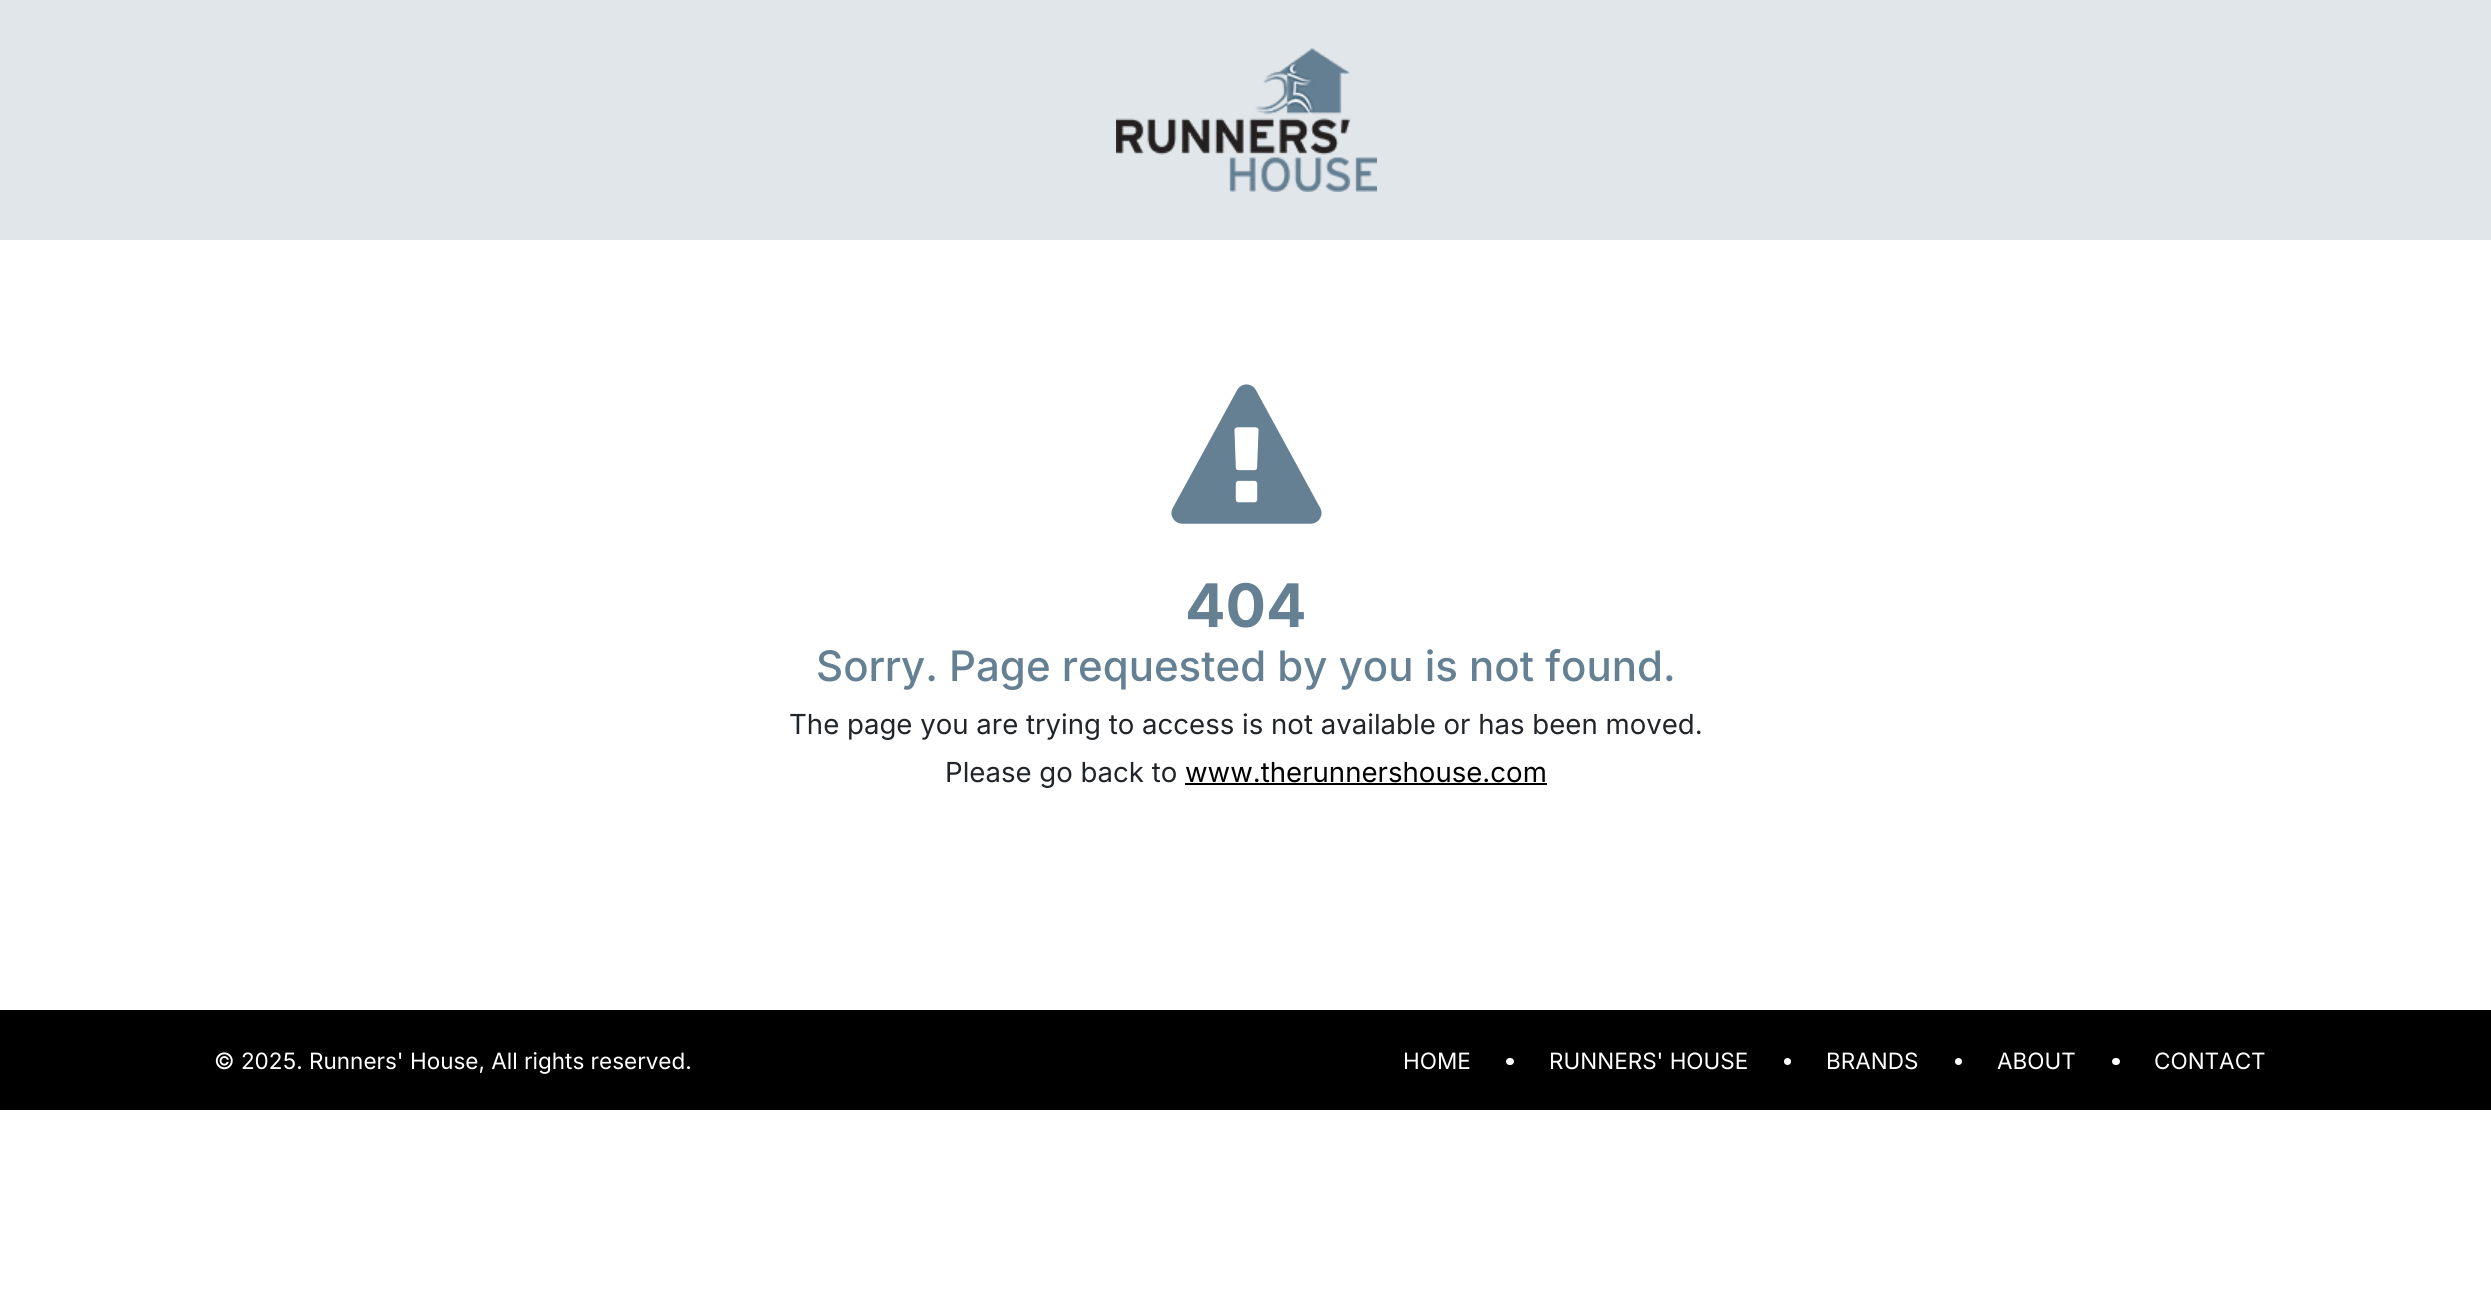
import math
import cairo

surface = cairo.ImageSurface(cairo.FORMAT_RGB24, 2491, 1315)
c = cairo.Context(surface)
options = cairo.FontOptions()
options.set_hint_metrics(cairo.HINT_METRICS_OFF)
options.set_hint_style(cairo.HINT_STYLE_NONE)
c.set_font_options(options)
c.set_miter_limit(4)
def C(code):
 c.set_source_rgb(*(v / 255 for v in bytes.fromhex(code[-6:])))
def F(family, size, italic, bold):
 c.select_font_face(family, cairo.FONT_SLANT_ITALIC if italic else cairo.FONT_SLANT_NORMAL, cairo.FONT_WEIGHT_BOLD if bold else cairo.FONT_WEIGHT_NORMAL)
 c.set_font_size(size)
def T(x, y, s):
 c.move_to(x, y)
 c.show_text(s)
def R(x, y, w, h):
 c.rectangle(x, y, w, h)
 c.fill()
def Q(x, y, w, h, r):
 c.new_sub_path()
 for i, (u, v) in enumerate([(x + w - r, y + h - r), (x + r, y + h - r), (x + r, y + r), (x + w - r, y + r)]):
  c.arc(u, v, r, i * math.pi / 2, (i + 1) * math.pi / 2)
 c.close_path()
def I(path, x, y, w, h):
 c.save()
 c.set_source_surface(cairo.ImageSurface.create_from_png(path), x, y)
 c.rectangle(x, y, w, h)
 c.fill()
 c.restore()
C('ffffff')
c.paint()
C('e1e6ea')
R(0,0,2491,240)
I('1.png',1116,48,261,144)
I('2.png',1171,384,151,140)
F('Inter',60,0,1)
C('658093')
T(1185,627,'404')
F('Inter Medium',42,0,0)
T(816,681,'Sorry. Page requested by you is not found.')
F('Inter',27.6,0,0)
C('212529')
T(789,734,'The page you are trying to access is not available or has been moved.')
T(945,782,'Please go back to')
C('000000')
T(1185,782,'www.therunnershouse.com')
R(1185,783,362,2)
R(0,1010,2491,100)
F('Inter',22.5,0,0)
C('ffffff')
T(214,1069,'© 2025. Runners\' House, All rights reserved.')
T(1403,1069,'HOME')
Q(1506,1058,8,7,3.5)
c.fill()
T(1549,1069,'RUNNERS\' HOUSE')
c.new_path()
c.arc(1787.5,1061.5,3.5,0,2 * math.pi)
c.fill()
T(1826,1069,'BRANDS')
c.new_path()
c.arc(1958.5,1061.5,3.5,0,2 * math.pi)
c.fill()
T(1997,1069,'ABOUT')
Q(2112,1058,8,7,3.5)
c.fill()
T(2154,1069,'CONTACT')
surface.write_to_png('o.png')
